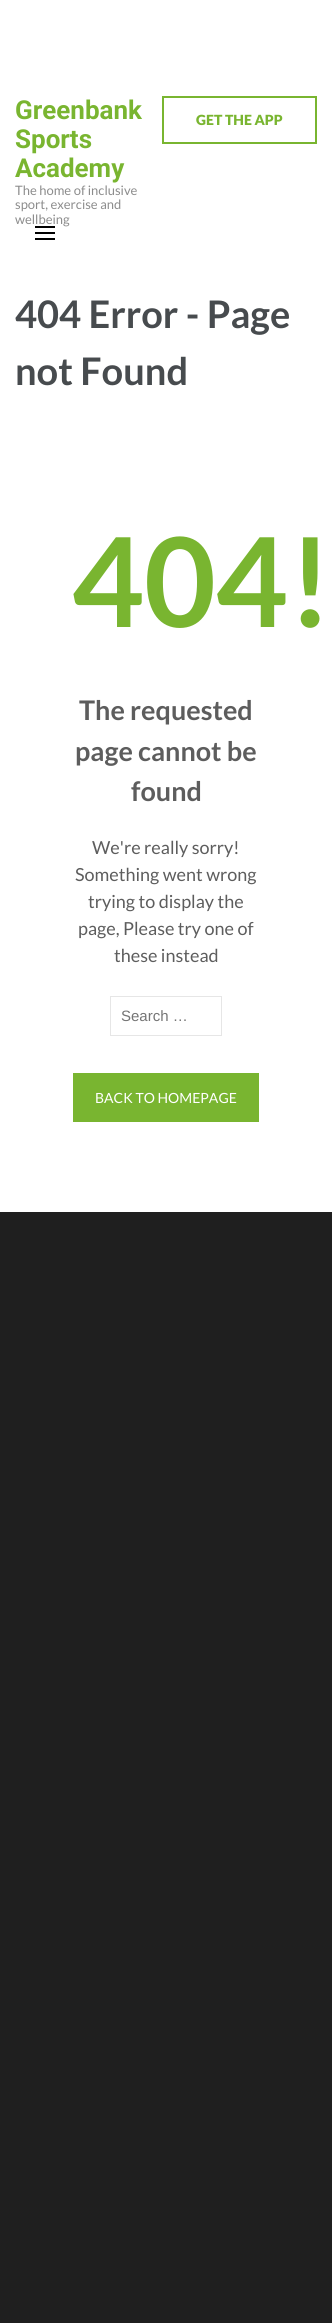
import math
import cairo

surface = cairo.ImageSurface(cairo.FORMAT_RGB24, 332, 2323)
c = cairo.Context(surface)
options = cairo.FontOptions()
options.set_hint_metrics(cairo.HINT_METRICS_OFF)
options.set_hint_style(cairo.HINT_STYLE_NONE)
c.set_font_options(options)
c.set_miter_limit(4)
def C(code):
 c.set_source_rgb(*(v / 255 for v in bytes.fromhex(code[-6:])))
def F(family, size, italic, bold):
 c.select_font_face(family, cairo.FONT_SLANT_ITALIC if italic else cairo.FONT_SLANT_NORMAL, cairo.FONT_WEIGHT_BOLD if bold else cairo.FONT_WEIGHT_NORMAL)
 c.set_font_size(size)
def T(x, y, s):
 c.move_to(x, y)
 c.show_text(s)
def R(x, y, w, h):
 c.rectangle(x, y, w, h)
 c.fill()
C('ffffff')
c.paint()
F('Roboto',26,0,1)
C('79b530')
T(15,119,'Greenbank')
T(15,148,'Sports')
T(15,177,'Academy')
F('Lato',13,0,0)
C('8c8c8c')
T(15,195,'The home of inclusive')
T(15,209,'sport, exercise and')
C('000000')
R(35,226,20,2)
C('8c8c8c')
T(15,224,'wellbeing')
c.rectangle(163,97,153,46)
C('79b530')
c.stroke()
F('Lato Black',14,0,0)
T(196,125,'GET THE APP')
C('000000')
R(35,232,20,2)
R(35,238,20,2)
F('Lato',38,0,1)
C('474b4e')
T(15,328,'404 Error - Page')
T(15,385,'not Found')
F('Lato',124,0,1)
C('79b530')
T(72,627,'404!')
F('Lato',27,0,1)
C('5d5d5d')
T(79,720,'The requested')
T(75,761,'page cannot be')
T(131,801,'found')
F('Lato',18,0,0)
T(92,854,'We\'re really sorry!')
T(75,881,'Something went wrong')
T(88,908,'trying to display the')
T(78,935,'page, Please try one of')
T(114,962,'these instead')
c.rectangle(110.5,996.5,111,39)
C('e6e6e6')
c.set_line_width(1)
c.stroke()
F('Liberation Sans',15,0,0)
C('757575')
T(121,1021,'Search …')
C('79b530')
R(73,1073,186,49)
F('Lato',14,0,0)
C('ffffff')
T(95,1103,'BACK TO HOMEPAGE')
C('1f1f1f')
R(0,1212,332,1111)
surface.write_to_png('o.png')
